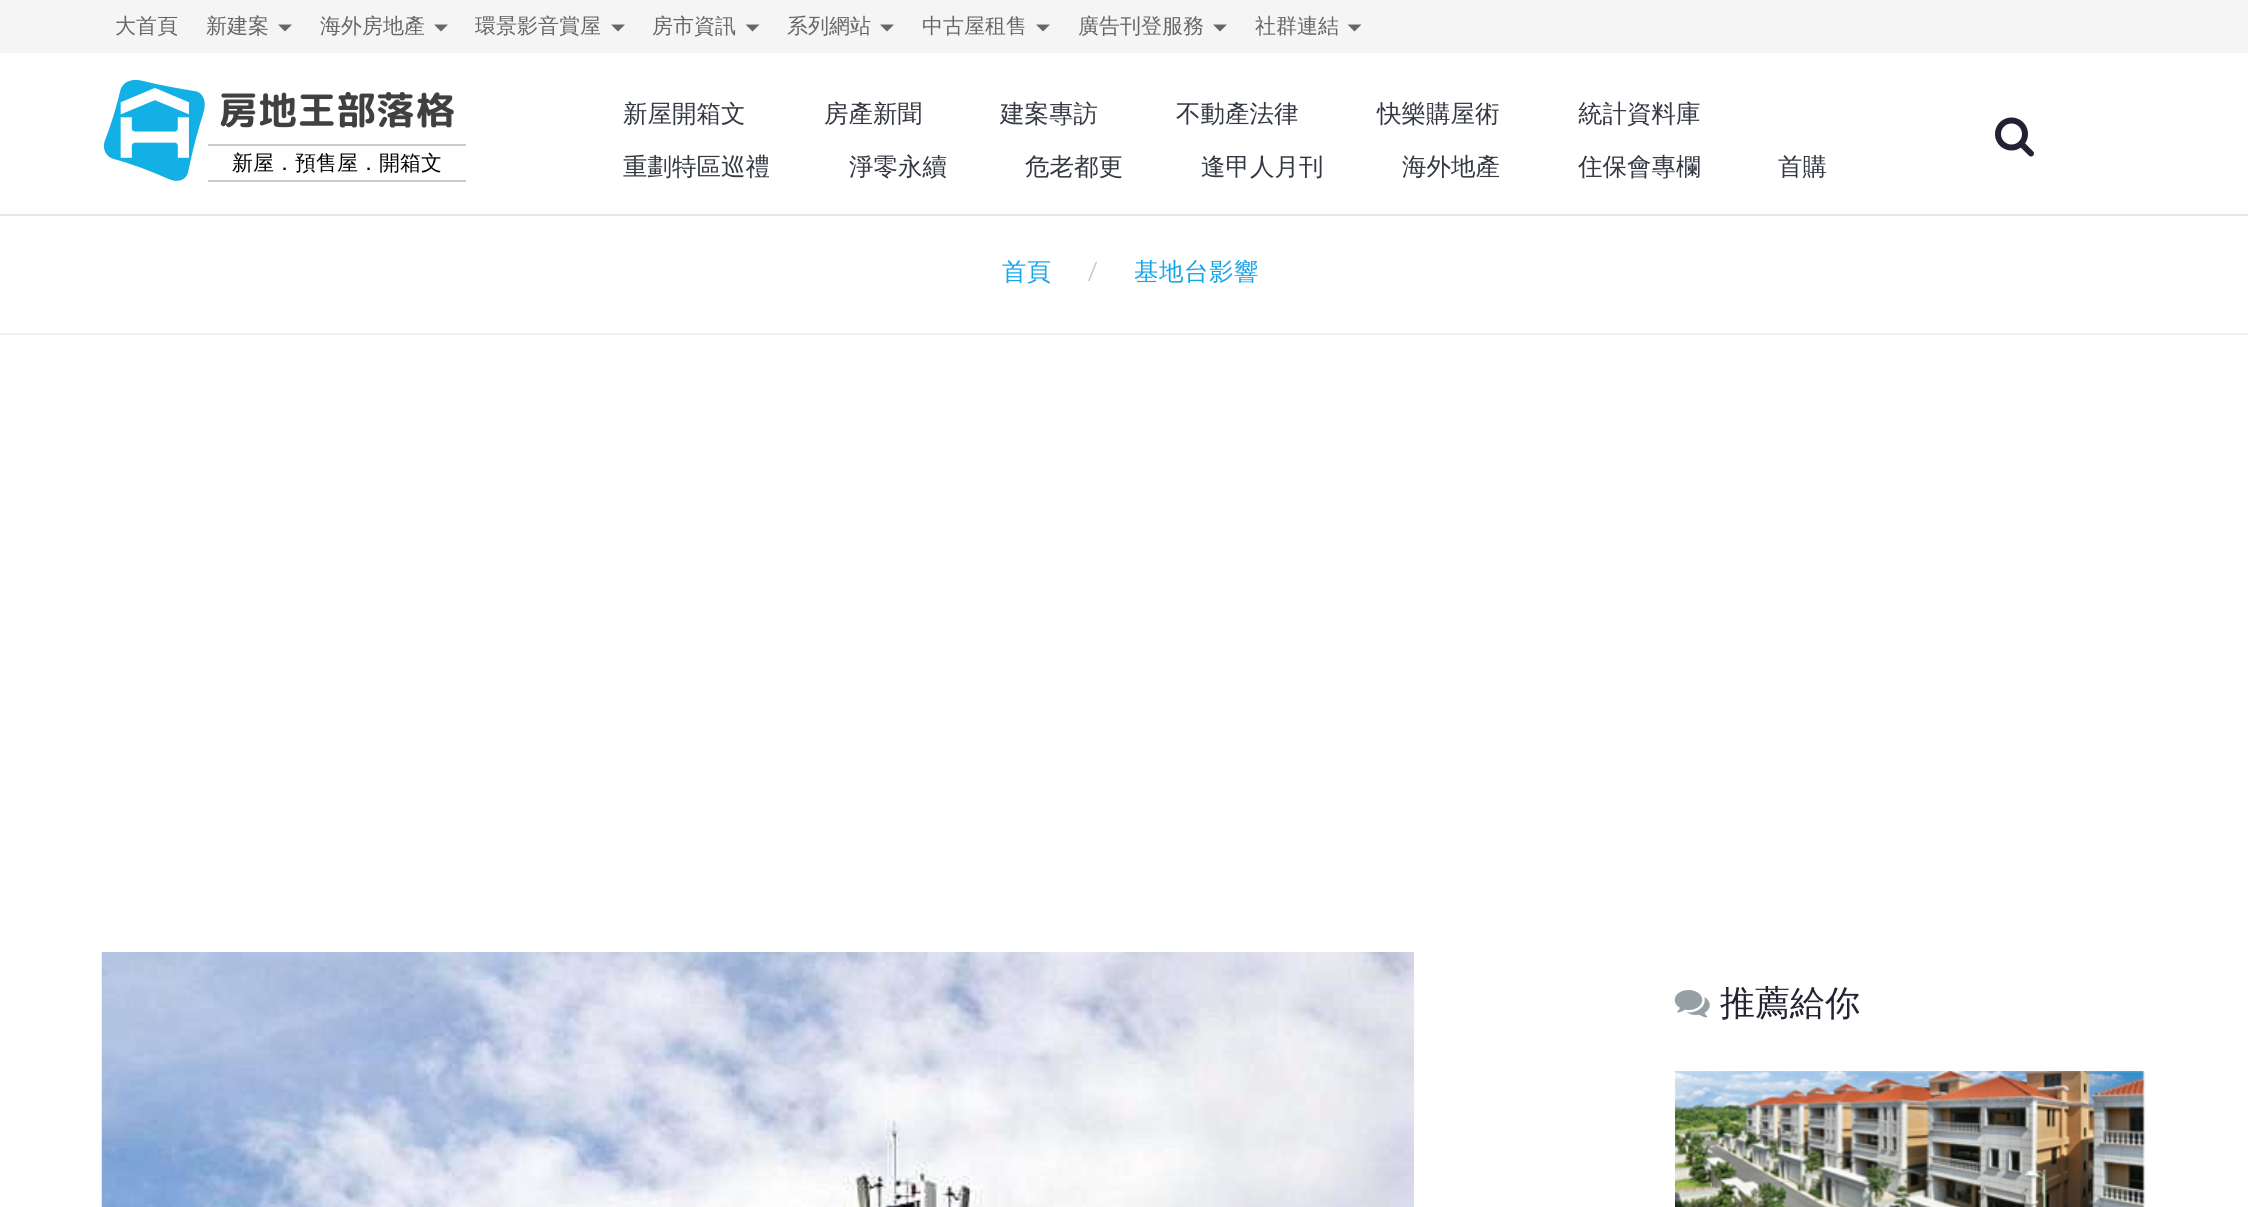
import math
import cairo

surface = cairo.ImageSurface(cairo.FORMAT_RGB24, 2248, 1207)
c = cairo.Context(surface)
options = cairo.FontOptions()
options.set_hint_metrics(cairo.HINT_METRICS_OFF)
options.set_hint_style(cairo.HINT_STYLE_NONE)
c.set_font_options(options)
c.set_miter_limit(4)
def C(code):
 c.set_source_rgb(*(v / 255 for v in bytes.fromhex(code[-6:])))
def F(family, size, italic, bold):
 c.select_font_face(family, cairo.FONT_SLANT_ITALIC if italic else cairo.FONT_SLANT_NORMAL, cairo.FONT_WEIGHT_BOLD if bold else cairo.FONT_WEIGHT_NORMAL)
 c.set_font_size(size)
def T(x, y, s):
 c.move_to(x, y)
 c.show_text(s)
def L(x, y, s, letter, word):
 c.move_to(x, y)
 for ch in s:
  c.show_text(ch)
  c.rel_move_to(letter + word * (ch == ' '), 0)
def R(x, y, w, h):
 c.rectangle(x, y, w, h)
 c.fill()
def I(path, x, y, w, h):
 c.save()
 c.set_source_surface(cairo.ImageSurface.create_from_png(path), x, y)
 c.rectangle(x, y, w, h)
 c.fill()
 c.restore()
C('ffffff')
c.paint()
C('e6e6e6')
R(0,214,2248,2)
C('f5f5f5')
R(0,0,2248,53)
F('WenQuanYi Zen Hei Medium',21,0,0)
C('666666')
T(115,33,'大首頁')
T(206,33,'新建案')
c.new_path()
c.move_to(278,24.5)
c.line_to(292,24.5)
c.line_to(285,31.5)
c.close_path()
c.fill()
T(320,33,'海外房地產')
c.new_path()
c.move_to(434,24.5)
c.line_to(448,24.5)
c.line_to(441,31.5)
c.close_path()
c.fill()
T(475,33,'環景影音賞屋')
c.new_path()
c.move_to(611,24.5)
c.line_to(625,24.5)
c.line_to(618,31.5)
c.close_path()
c.fill()
T(652,33,'房市資訊')
c.new_path()
c.move_to(745.5,24.5)
c.line_to(759.5,24.5)
c.line_to(752.5,31.5)
c.close_path()
c.fill()
T(787,33,'系列網站')
c.new_path()
c.move_to(880,24.5)
c.line_to(894,24.5)
c.line_to(887,31.5)
c.close_path()
c.fill()
T(922,33,'中古屋租售')
c.new_path()
c.move_to(1036,24.5)
c.line_to(1050,24.5)
c.line_to(1043,31.5)
c.close_path()
c.fill()
T(1078,33,'廣告刊登服務')
c.new_path()
c.move_to(1213,24.5)
c.line_to(1227,24.5)
c.line_to(1220,31.5)
c.close_path()
c.fill()
T(1255,33,'社群連結')
c.new_path()
c.move_to(1347.5,24.5)
c.line_to(1361.5,24.5)
c.line_to(1354.5,31.5)
c.close_path()
c.fill()
I('1.png',103,79,102,102)
F('Rounded Mplus 1c Bold',38.5,0,1)
C('404041')
L(219,124,'房地王部落格',.75,0)
C('cccccc')
R(208,144,258,2)
R(208,180,258,2)
F('WenQuanYi Zen Hei Medium',21,0,0)
C('000000')
T(232,170,'新屋．預售屋．開箱文')
F('WenQuanYi Zen Hei Medium',24.5,0,0)
C('343842')
T(623,122,'新屋開箱文')
T(824,122,'房產新聞')
T(1000,122,'建案專訪')
T(1176,122,'不動產法律')
T(1377,122,'快樂購屋術')
T(1578,122,'統計資料庫')
T(623,175,'重劃特區巡禮')
T(849,175,'淨零永續')
T(1025,175,'危老都更')
T(1201,175,'逢甲人月刊')
T(1402,175,'海外地產')
T(1578,175,'住保會專欄')
T(1778,175,'首購')
I('2.png',1995,117,39,40)
C('f3f3ed')
R(0,333,2248,2)
C('14a5eb')
T(1002,280,'首頁')
F('Lato',24.5,0,0)
C('cccccc')
T(1087,280,'/')
F('WenQuanYi Zen Hei Medium',24.5,0,0)
C('14a5eb')
L(1134,280,'基地台影響',.5,0)
I('3.png',101,952,1313,255)
I('4.png',1674,990,36,28)
F('WenQuanYi Zen Hei Medium',35,0,0)
C('262032')
T(1720,1015,'推薦給你')
I('5.png',1675,1071,471,136)
surface.write_to_png('o.png')
